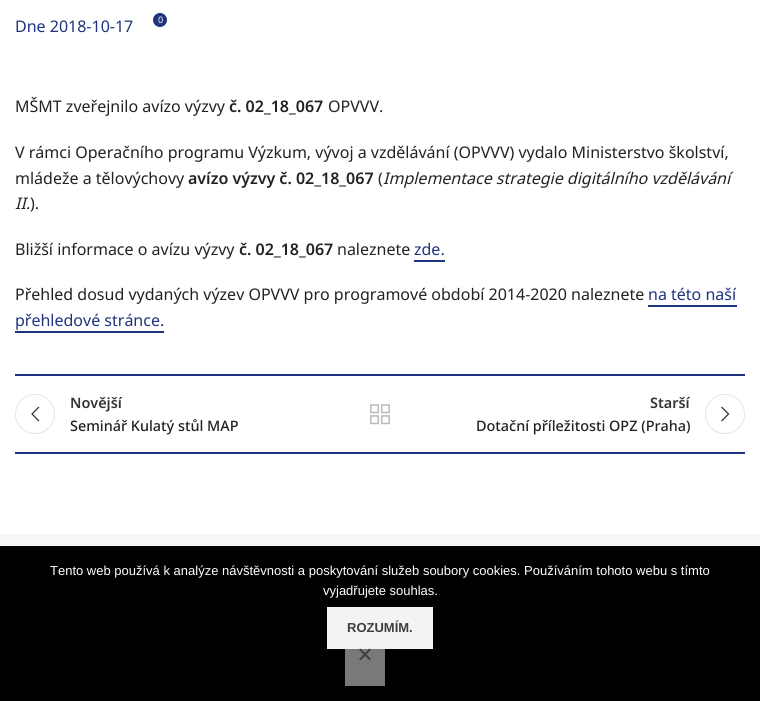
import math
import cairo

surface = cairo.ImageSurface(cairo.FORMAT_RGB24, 760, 701)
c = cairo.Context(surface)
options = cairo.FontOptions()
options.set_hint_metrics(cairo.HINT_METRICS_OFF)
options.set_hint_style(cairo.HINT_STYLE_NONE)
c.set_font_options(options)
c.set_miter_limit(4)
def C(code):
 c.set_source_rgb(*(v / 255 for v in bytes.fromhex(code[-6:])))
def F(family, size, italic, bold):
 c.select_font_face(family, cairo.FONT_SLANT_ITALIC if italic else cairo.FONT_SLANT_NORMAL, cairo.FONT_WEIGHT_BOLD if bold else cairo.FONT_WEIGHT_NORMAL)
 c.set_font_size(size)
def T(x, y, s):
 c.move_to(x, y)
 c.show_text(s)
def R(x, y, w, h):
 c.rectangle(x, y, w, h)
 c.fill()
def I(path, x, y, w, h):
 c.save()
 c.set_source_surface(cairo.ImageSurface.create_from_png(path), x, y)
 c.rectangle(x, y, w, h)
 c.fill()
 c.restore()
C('ffffff')
c.paint()
F('Noto Sans',16,0,0)
C('1f337e')
T(15,32,'Dne 2018-10-17')
c.new_path()
c.arc(160,20,7,0,2 * math.pi)
c.fill()
F('Noto Sans',9,0,0)
C('ffffff')
T(158,23,'0')
F('Noto Sans',16,0,0)
C('222222')
T(15,112,'MŠMT zveřejnilo avízo výzvy')
F('Noto Sans SemiBold',16,0,0)
T(229,112,'č. 02_18_067')
F('Noto Sans',16,0,0)
T(328,112,'OPVVV.')
T(15,158,'V rámci Operačního programu Výzkum, vývoj a vzdělávání (OPVVV) vydalo Ministerstvo školství,')
T(15,184,'mládeže a tělovýchovy')
F('Noto Sans SemiBold',16,0,0)
T(188,184,'avízo výzvy č. 02_18_067')
F('Noto Sans',16,0,0)
T(378,184,'(')
F('Noto Sans',16,1,0)
T(383,184,'Implementace strategie digitálního vzdělávání')
T(15,209,'II.')
F('Noto Sans',16,0,0)
T(30,209,').')
T(15,255,'Bližší informace o avízu výzvy')
F('Noto Sans SemiBold',16,0,0)
T(239,255,'č. 02_18_067')
F('Noto Sans',16,0,0)
T(337,255,'naleznete')
C('1f337e')
T(414,255,'zde.')
R(414,260,31,2)
C('222222')
T(15,300,'Přehled dosud vydaných výzev OPVVV pro programové období 2014-2020 naleznete')
C('1f337e')
T(648,300,'na této naší')
R(648,305,89,2)
T(15,326,'přehledové stránce.')
R(15,331,149,2)
R(15,374,730,2)
R(15,452,730,2)
c.new_path()
c.arc(35,414,19.5,0,2 * math.pi)
C('e4e4e4')
c.set_line_width(1)
c.stroke()
I('1.png',31,406,9,16)
F('Noto Sans SemiBold',14.4,0,0)
C('333333')
T(70,408,'Novější')
F('Noto Sans Medium',14.4,0,0)
C('222222')
T(70,431,'Seminář Kulatý stůl MAP')
I('2.png',370,404,20,21)
F('Noto Sans SemiBold',14.4,0,0)
C('333333')
T(650,408,'Starší')
c.new_path()
c.arc(725,414,19.5,0,2 * math.pi)
C('e4e4e4')
c.stroke()
I('3.png',721,406,9,16)
F('Noto Sans Medium',14.4,0,0)
C('222222')
T(476,431,'Dotační příležitosti OPZ (Praha)')
C('f6f6f6')
R(0,534,760,12)
C('000000')
R(0,546,760,155)
F('Liberation Sans',13,0,0)
C('ffffff')
T(50,575,'Tento web používá k analýze návštěvnosti a poskytování služeb soubory cookies. Používáním tohoto webu s tímto')
T(323,595,'vyjadřujete souhlas.')
C('f3f3f3')
R(327,607,106,42)
F('Liberation Sans',13,0,1)
C('3e3e3e')
T(347,632,'ROZUMÍM.')
c.set_source_rgba(0.953,0.953,0.953,0.5)
R(345,649,40,37)
C('404040')
c.new_path()
c.move_to(369.5,648.5)
c.line_to(371,650)
c.line_to(360.5,660.5)
c.line_to(359,659)
c.close_path()
c.fill()
c.new_path()
c.move_to(359,650)
c.line_to(360.5,648.5)
c.line_to(371,659)
c.line_to(369.5,660.5)
c.close_path()
c.fill()
surface.write_to_png('o.png')
